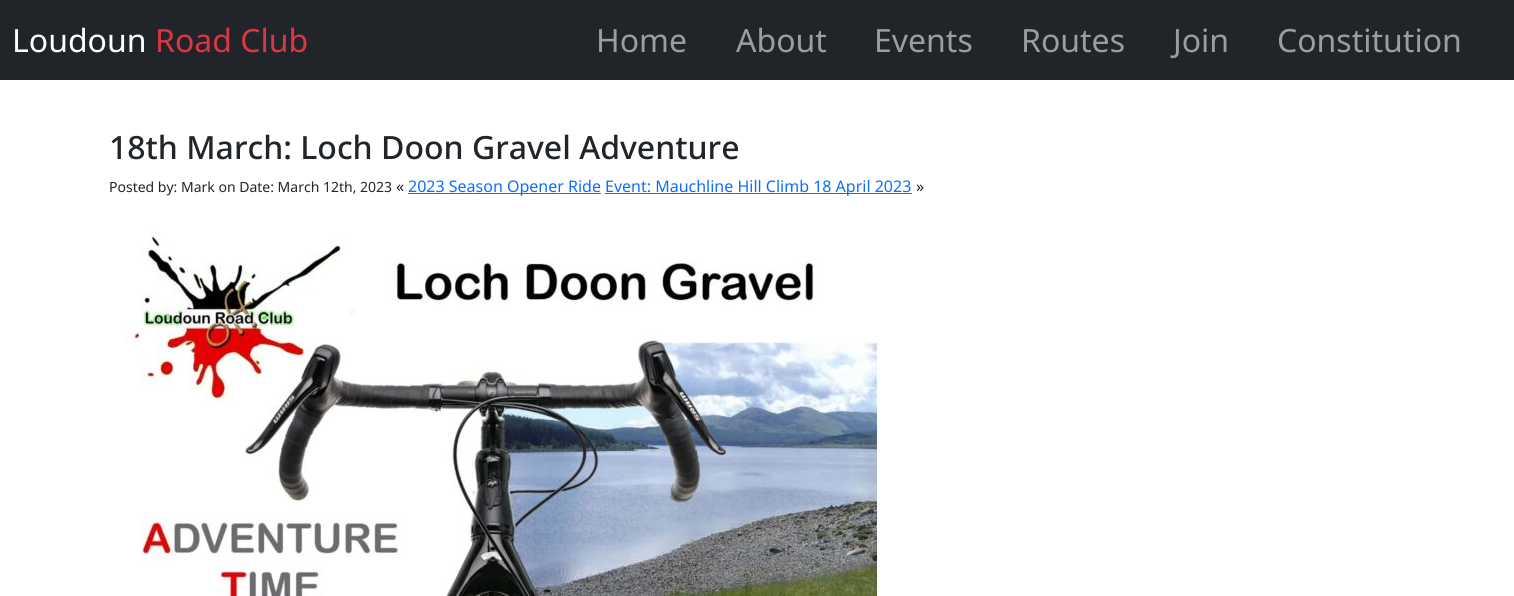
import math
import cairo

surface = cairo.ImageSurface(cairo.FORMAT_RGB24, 1514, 596)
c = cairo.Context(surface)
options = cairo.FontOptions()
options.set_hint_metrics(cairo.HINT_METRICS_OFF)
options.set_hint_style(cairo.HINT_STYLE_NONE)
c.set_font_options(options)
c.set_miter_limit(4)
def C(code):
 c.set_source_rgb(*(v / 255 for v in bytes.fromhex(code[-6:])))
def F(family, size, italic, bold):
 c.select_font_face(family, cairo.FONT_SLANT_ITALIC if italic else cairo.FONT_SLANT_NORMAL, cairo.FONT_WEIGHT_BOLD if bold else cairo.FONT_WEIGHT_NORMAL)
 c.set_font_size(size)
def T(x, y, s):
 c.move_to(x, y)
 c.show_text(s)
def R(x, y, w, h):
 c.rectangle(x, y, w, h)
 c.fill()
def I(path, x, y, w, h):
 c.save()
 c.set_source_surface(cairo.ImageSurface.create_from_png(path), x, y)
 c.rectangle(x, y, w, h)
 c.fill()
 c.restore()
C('ffffff')
c.paint()
C('212529')
R(0,0,1514,80)
F('Noto Sans',32,0,0)
C('ffffff')
T(12,52,'Loudoun')
C('dc3545')
T(155,52,'Road Club')
C('9b9d9f')
T(596,52,'Home')
T(736,52,'About')
T(874,52,'Events')
T(1021,52,'Routes')
T(1173,52,'Join')
T(1277,52,'Constitution')
F('Noto Sans Medium',32,0,0)
C('212529')
T(109,159,'18th March: Loch Doon Gravel Adventure')
F('Noto Sans',14,0,0)
T(109,192,'Posted by: Mark on Date: March 12th, 2023')
F('Noto Sans',16,0,0)
T(396,192,'«')
C('0d6efd')
R(408,193,193,1)
T(408,192,'2023 Season Opener Ride')
R(605,193,307,1)
T(605,192,'Event: Mauchline Hill Climb 18 April 2023')
C('212529')
T(916,192,'»')
I('1.png',124,230,753,366)
surface.write_to_png('o.png')
